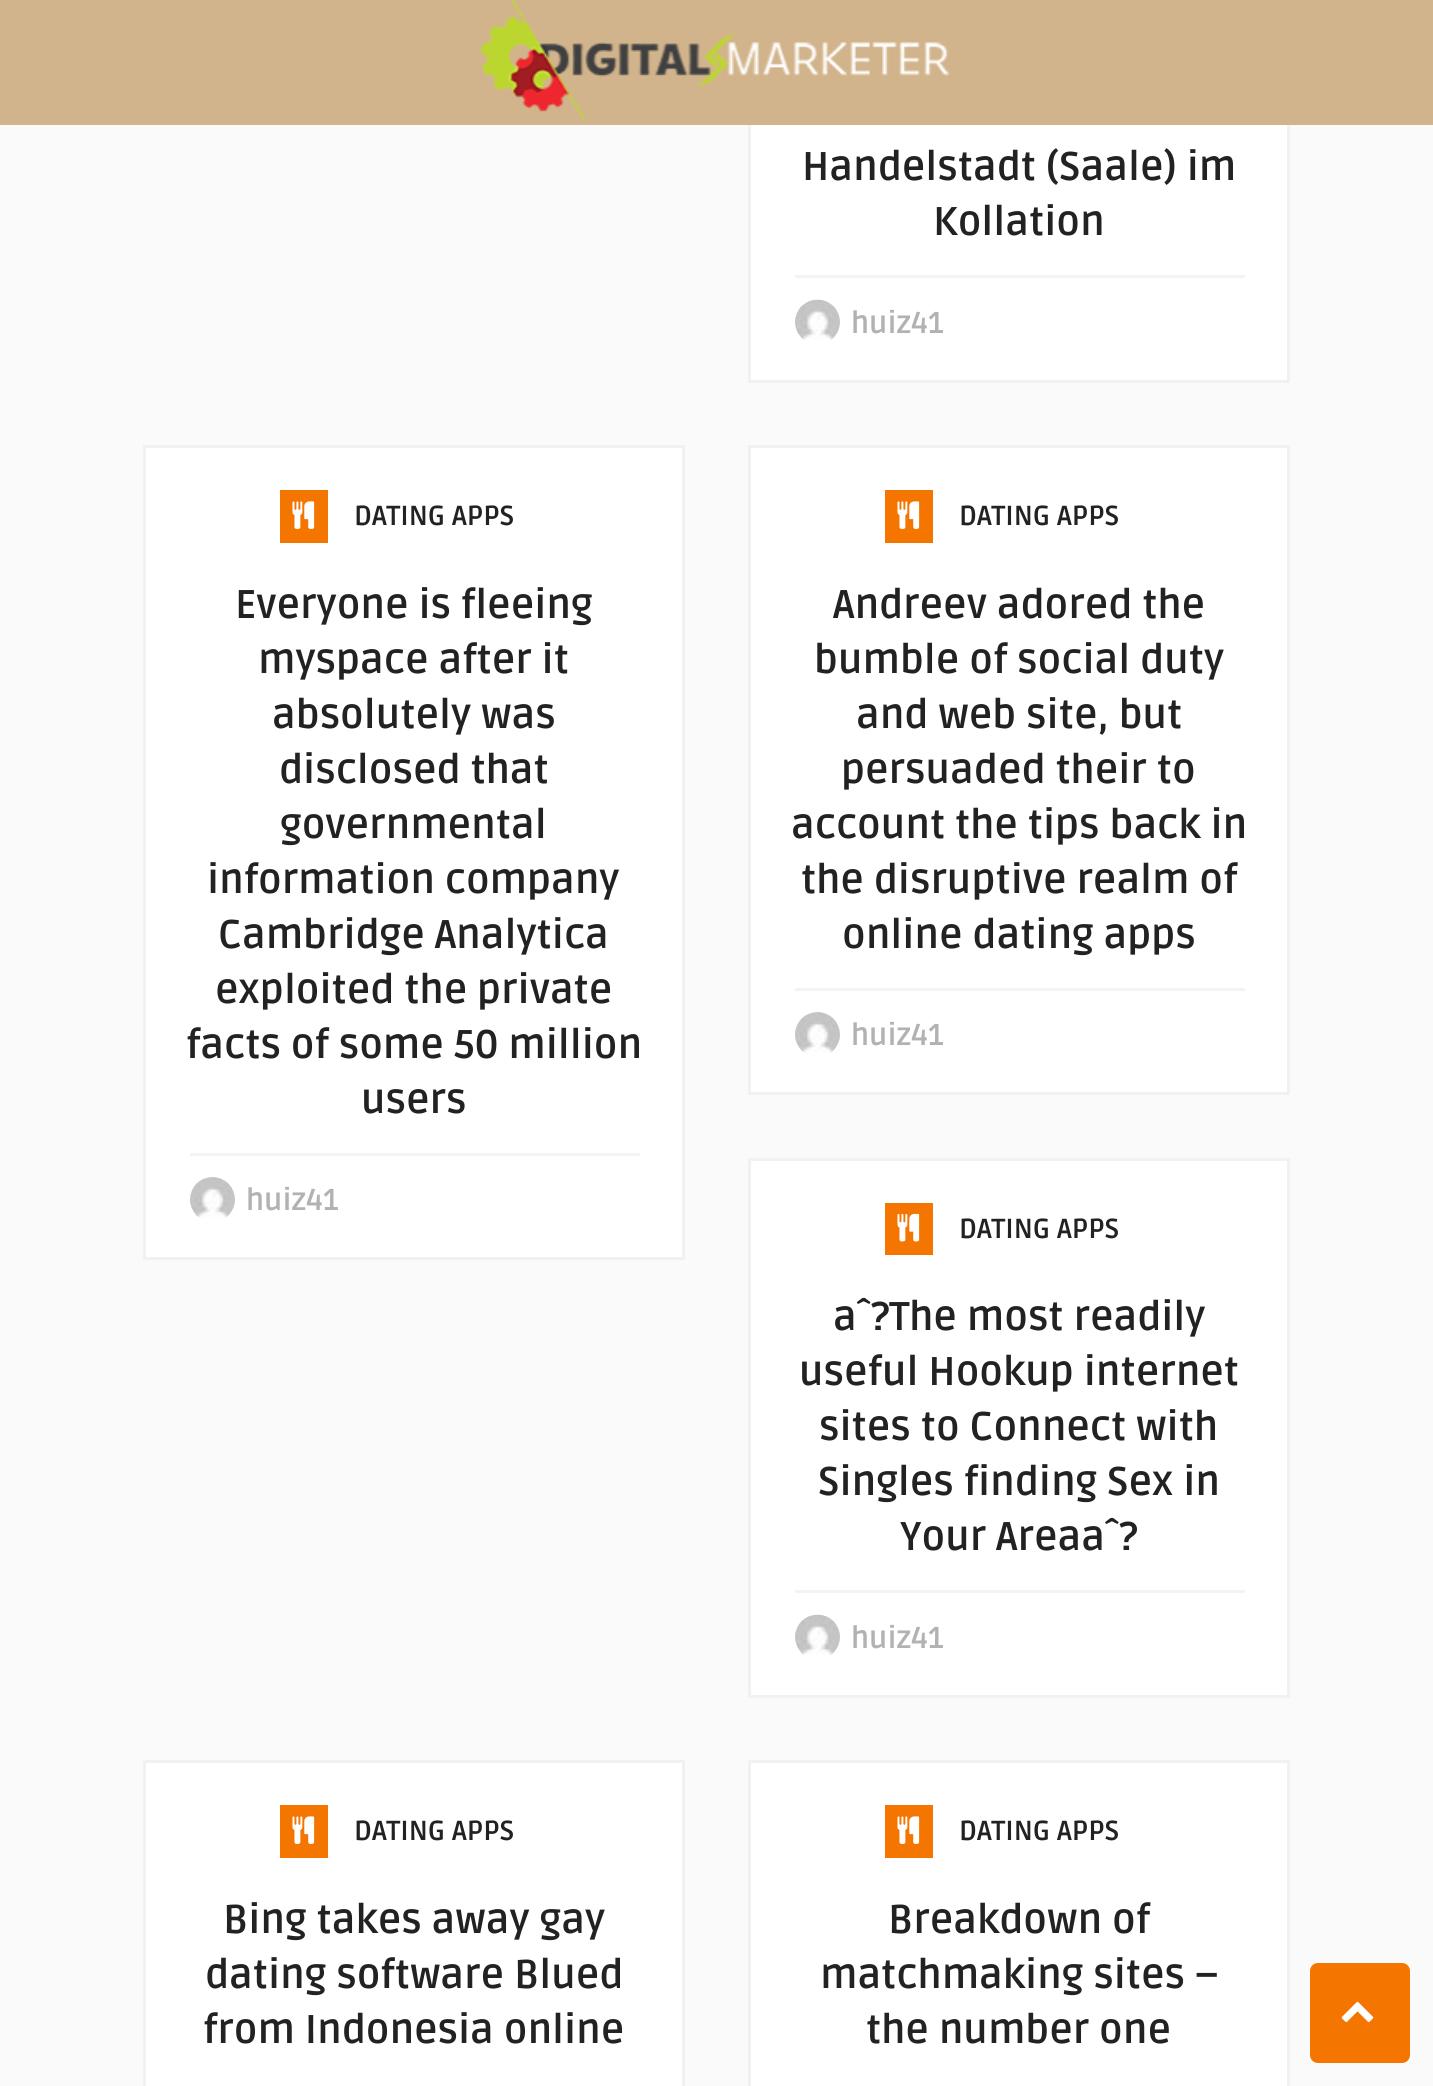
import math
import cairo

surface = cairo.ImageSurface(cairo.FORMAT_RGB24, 1433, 2086)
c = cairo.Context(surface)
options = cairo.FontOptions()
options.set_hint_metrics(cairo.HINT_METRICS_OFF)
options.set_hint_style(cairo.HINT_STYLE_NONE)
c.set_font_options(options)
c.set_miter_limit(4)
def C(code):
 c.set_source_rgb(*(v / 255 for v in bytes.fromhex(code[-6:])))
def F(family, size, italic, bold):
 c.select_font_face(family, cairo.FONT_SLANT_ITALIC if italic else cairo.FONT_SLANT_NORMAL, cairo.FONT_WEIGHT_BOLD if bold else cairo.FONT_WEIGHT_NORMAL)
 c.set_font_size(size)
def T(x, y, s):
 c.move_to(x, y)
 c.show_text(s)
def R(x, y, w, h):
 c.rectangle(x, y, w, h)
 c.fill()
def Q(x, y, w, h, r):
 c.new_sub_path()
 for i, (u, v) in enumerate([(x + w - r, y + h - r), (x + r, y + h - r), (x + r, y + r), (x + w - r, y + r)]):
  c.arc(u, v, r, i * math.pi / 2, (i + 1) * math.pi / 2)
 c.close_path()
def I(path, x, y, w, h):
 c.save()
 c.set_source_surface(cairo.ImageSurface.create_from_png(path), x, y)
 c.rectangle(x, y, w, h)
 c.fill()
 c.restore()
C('fafafa')
c.paint()
C('ffffff')
R(751,125,536,255)
c.rectangle(749.5,-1.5,539,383)
C('f1f1f1')
c.set_line_width(3)
c.stroke()
C('d2b48c')
R(0,0,1433,125)
I('1.png',480,0,470,121)
F('Ruda',40,0,1)
C('222222')
T(802,180,'Handelstadt (Saale) im')
T(933,235,'Kollation')
C('f3f3f3')
R(795,275,450,3)
I('2.png',795,299,45,41)
F('Ruda',30,0,1)
C('b3b2b2')
T(851,333,'huiz41')
C('ffffff')
c.rectangle(144.5,446.5,539,812)
c.fill_preserve()
C('f1f1f1')
c.stroke()
C('f47500')
R(280,490,48,53)
I('3.png',292,501,23,28)
F('Ruda',27.5,0,1)
C('222222')
T(354,525,'DATING APPS')
F('Ruda',40,0,1)
T(235,618,'Everyone is fleeing')
T(258,673,'myspace after it')
T(272,728,'absolutely was')
T(279,783,'disclosed that')
T(280,838,'governmental')
T(207,893,'information company')
T(218,948,'Cambridge Analytica')
T(215,1003,'exploited the private')
T(186,1058,'facts of some 50 million')
T(361,1113,'users')
C('f3f3f3')
R(190,1153,450,3)
I('4.png',190,1177,45,41)
F('Ruda',30,0,1)
C('b3b2b2')
T(246,1210,'huiz41')
C('ffffff')
c.rectangle(749.5,446.5,539,647)
c.fill_preserve()
C('f1f1f1')
c.stroke()
C('f47500')
R(885,490,48,53)
I('3.png',897,501,23,28)
F('Ruda',27.5,0,1)
C('222222')
T(959,525,'DATING APPS')
F('Ruda',40,0,1)
T(833,618,'Andreev adored the')
T(814,673,'bumble of social duty')
T(856,728,'and web site, but')
T(841,783,'persuaded their to')
T(791,838,'account the tips back in')
T(801,893,'the disruptive realm of')
T(842,948,'online dating apps')
C('f3f3f3')
R(795,988,450,3)
I('5.png',795,1012,45,41)
F('Ruda',30,0,1)
C('b3b2b2')
T(851,1045,'huiz41')
C('ffffff')
c.rectangle(749.5,1159.5,539,537)
c.fill_preserve()
C('f1f1f1')
c.stroke()
C('f47500')
R(885,1203,48,52)
I('6.png',897,1213,23,29)
F('Ruda',27.5,0,1)
C('222222')
T(959,1238,'DATING APPS')
F('Ruda',40,0,1)
T(833,1330,'aˆ?The most readily')
T(799,1385,'useful Hookup internet')
T(819,1440,'sites to Connect with')
T(818,1495,'Singles finding Sex in')
T(900,1550,'Your Areaaˆ?')
C('f3f3f3')
R(795,1590,450,3)
I('2.png',795,1614,45,41)
F('Ruda',30,0,1)
C('b3b2b2')
T(851,1648,'huiz41')
C('ffffff')
c.rectangle(144.5,1761.5,539,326)
c.fill_preserve()
C('f1f1f1')
c.stroke()
C('f47500')
R(280,1805,48,53)
I('3.png',292,1816,23,28)
F('Ruda',27.5,0,1)
C('222222')
T(354,1840,'DATING APPS')
F('Ruda',40,0,1)
T(223,1933,'Bing takes away gay')
T(205,1988,'dating software Blued')
T(203,2043,'from Indonesia online')
C('ffffff')
c.rectangle(749.5,1761.5,539,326)
c.fill_preserve()
C('f1f1f1')
c.stroke()
C('f47500')
R(885,1805,48,53)
I('3.png',897,1816,23,28)
F('Ruda',27.5,0,1)
C('222222')
T(959,1840,'DATING APPS')
F('Ruda',40,0,1)
T(888,1933,'Breakdown of')
T(820,1988,'matchmaking sites –')
T(866,2043,'the number one')
C('f47500')
Q(1310,1963,100,100,8)
c.fill()
I('7.png',1341,2001,33,22)
surface.write_to_png('o.png')
